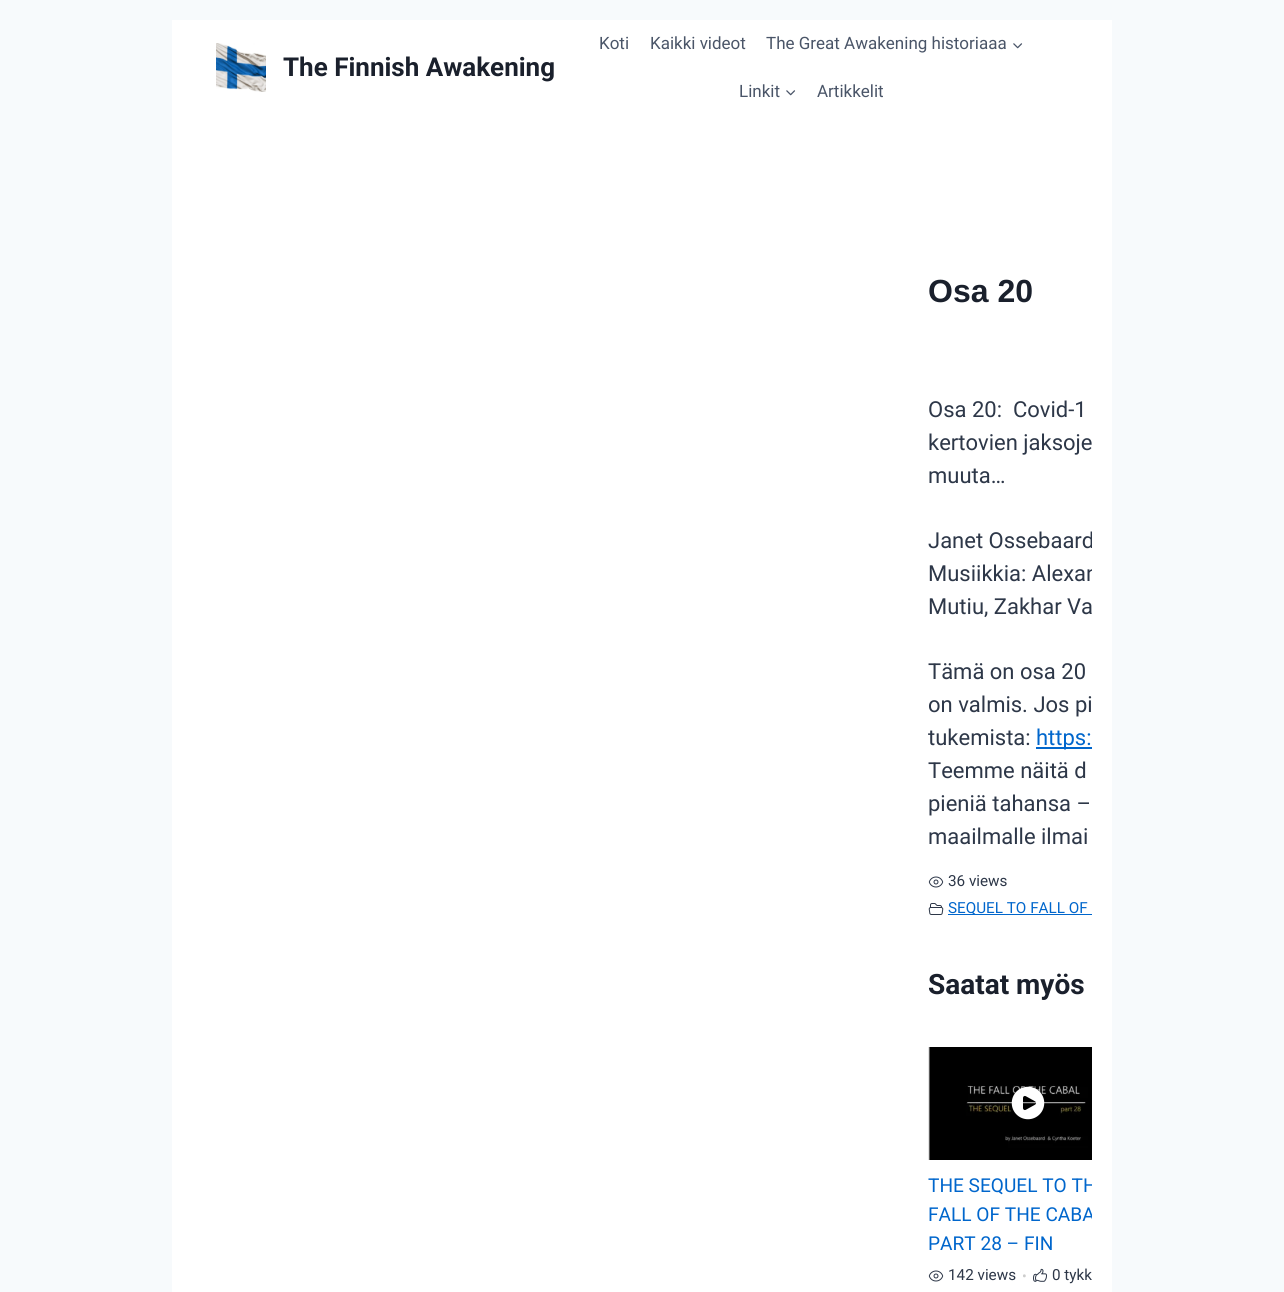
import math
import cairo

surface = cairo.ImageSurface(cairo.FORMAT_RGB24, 1284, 1292)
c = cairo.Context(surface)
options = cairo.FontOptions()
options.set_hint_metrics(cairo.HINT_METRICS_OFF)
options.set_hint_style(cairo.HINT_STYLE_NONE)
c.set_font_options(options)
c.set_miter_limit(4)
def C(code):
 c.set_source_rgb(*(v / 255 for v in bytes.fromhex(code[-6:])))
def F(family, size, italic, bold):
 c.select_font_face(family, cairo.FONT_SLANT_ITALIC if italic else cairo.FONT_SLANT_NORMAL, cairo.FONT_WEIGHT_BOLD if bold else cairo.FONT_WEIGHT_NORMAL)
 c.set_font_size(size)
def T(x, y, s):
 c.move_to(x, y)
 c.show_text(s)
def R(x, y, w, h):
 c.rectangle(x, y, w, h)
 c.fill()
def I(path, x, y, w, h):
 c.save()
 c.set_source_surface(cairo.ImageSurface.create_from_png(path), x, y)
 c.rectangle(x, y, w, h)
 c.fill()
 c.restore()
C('f7fafc')
c.paint()
C('ffffff')
R(172,20,940,1272)
I('1.png',216,43,50,49)
F('Roboto',26,0,1)
C('1a202c')
T(283,76,'The Finnish Awakening')
F('Roboto',17,0,0)
C('4a5568')
T(599,49,'Koti')
T(650,49,'Kaikki videot')
T(766,49,'The Great Awakening historiaaa')
I('2.png',1013,43,10,6)
T(739,97,'Linkit')
I('2.png',786,90,10,6)
T(817,97,'Artikkelit')
F('Liberation Sans',32,0,1)
C('1a202c')
T(928,302,'Osa 20')
F('Roboto',22,0,0)
C('2d3748')
T(928,417,'Osa 20:  Covid-1')
T(928,450,'kertovien jaksoje')
T(928,483,'muuta…')
c.save()
c.rectangle(896,195,196,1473)
c.clip()
T(928,548,'Janet Ossebaard')
T(928,581,'Musiikkia: Alexan')
c.restore()
T(928,614,'Mutiu, Zakhar Va')
T(928,679,'Tämä on osa 20')
T(928,712,'on valmis. Jos pi')
T(928,745,'tukemista:')
C('0066cc')
R(1036,747,56,2)
T(1036,745,'https:')
C('2d3748')
T(928,778,'Teemme näitä d')
T(928,811,'pieniä tahansa –')
T(928,844,'maailmalle ilmai')
I('3.png',928,876,16,12)
F('Roboto',15.25,0,0)
T(948,886,'36 views')
I('4.png',928,903,16,12)
C('0066cc')
R(948,914,144,1)
T(948,913,'SEQUEL TO FALL OF')
F('Roboto',28,0,1)
C('1a202c')
T(928,994,'Saatat myös')
C('f0f0f0')
R(928,1047,2,113)
I('5.png',928,1047,164,113)
I('6.png',1011,1086,34,34)
c.save()
c.rectangle(896,195,196,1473)
c.clip()
F('Roboto',19.1,0,0)
C('0066cc')
T(928,1192,'THE SEQUEL TO TH')
T(928,1221,'FALL OF THE CABA')
c.restore()
F('Roboto',19.1,0,0)
C('0066cc')
T(928,1250,'PART 28 – FIN')
I('3.png',928,1270,16,12)
F('Roboto',15.25,0,0)
C('2d3748')
T(948,1280,'142 views')
F('Roboto',14,0,0)
C('cccccc')
T(1022,1281,'•')
I('7.png',1033,1268,14,14)
F('Roboto',15.25,0,0)
C('2d3748')
T(1052,1280,'0 tykk')
surface.write_to_png('o.png')
